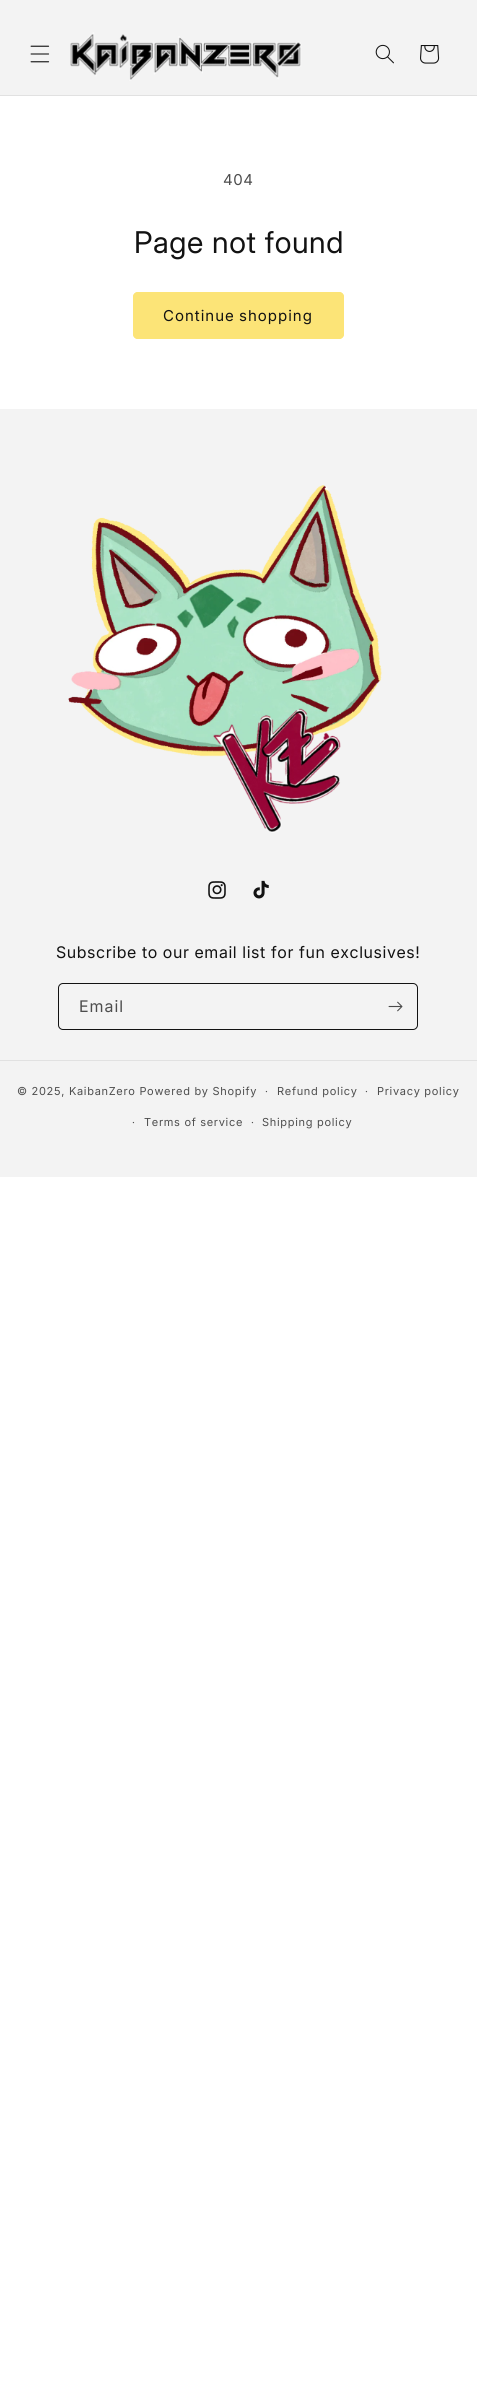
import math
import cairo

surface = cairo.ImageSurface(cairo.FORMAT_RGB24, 477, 2401)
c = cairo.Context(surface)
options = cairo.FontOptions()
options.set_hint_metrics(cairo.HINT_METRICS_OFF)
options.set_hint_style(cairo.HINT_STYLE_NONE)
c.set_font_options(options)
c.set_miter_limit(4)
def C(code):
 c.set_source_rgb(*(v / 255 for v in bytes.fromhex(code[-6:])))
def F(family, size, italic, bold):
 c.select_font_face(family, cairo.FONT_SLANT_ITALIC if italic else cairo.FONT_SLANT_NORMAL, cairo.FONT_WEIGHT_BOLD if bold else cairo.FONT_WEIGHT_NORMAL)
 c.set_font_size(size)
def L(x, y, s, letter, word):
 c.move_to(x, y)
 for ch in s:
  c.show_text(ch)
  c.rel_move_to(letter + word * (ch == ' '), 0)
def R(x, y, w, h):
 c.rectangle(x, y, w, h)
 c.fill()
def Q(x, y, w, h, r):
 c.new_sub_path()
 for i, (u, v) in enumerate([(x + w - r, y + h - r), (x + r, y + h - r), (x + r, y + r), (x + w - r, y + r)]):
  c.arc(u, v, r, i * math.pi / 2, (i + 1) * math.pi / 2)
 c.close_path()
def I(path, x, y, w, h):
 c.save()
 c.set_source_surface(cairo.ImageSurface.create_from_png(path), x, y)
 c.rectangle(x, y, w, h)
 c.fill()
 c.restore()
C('ffffff')
c.paint()
C('f3f3f3')
R(0,0,477,95)
C('e1e1e1')
R(0,95,477,1)
I('1.png',30,45,20,18)
I('2.png',70,32,232,49)
I('3.png',375,44,19,20)
I('4.png',420,45,20,19)
F('Inter',15,0,0)
C('4d4d4d')
L(223,185,'404',.6,0)
F('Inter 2',30,0,0)
C('121212')
L(134,253,'Page not found',.6,0)
C('fce477')
Q(133,292,211,47,5)
c.fill()
Q(133.5,292.5,210,46,4.5)
c.set_line_width(1)
c.stroke()
F('Inter',15,0,0)
C('121212')
L(163,321,'Continue shopping',1,-1)
C('f3f3f3')
R(0,409,477,768)
I('5.png',68,485,314,348)
I('6.png',208,881,18,18)
I('7.png',253,880,16,19)
F('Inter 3',16,0,0)
C('121212')
L(56,958,'Subscribe to our email list for fun exclusives!',.6,0)
Q(58.5,983.5,359,46,4.5)
c.stroke()
C('4d4d4d')
L(79,1012,'Email',1,0)
I('8.png',388,1001,15,11)
C('e1e1e1')
R(0,1060,477,1)
F('Inter',11,0,0)
C('4d4d4d')
L(17,1095,'© 2025, KaibanZero Powered by Shopify',.7,0)
F('Inter',10,0,0)
L(265,1095,'·',.7,0)
F('Inter',11,0,0)
L(277,1095,'Refund policy',.7,0)
F('Inter',10,0,0)
L(365,1095,'·',.7,0)
F('Inter',11,0,0)
L(377,1095,'Privacy policy',.7,0)
F('Inter',10,0,0)
L(132,1126,'·',.7,0)
F('Inter',11,0,0)
L(144,1126,'Terms of service',.7,0)
F('Inter',10,0,0)
L(251,1126,'·',.7,0)
F('Inter',11,0,0)
L(262,1126,'Shipping policy',.7,0)
surface.write_to_png('o.png')
